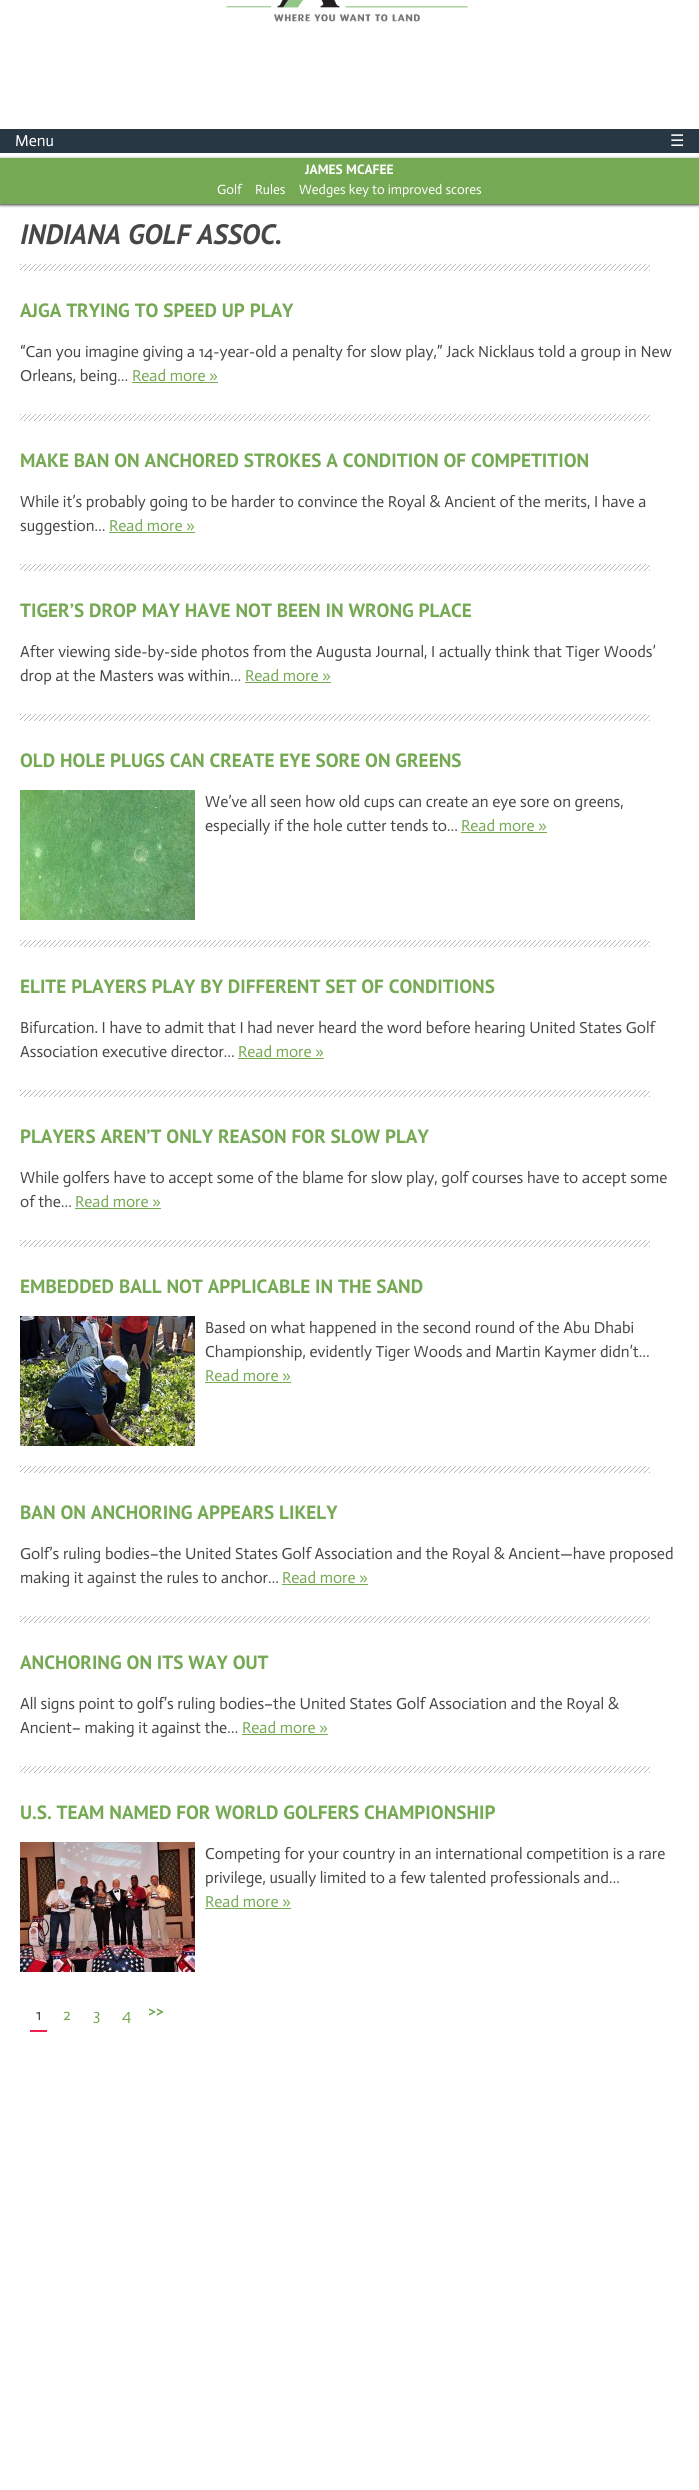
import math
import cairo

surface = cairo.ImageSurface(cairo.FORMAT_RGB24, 699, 2490)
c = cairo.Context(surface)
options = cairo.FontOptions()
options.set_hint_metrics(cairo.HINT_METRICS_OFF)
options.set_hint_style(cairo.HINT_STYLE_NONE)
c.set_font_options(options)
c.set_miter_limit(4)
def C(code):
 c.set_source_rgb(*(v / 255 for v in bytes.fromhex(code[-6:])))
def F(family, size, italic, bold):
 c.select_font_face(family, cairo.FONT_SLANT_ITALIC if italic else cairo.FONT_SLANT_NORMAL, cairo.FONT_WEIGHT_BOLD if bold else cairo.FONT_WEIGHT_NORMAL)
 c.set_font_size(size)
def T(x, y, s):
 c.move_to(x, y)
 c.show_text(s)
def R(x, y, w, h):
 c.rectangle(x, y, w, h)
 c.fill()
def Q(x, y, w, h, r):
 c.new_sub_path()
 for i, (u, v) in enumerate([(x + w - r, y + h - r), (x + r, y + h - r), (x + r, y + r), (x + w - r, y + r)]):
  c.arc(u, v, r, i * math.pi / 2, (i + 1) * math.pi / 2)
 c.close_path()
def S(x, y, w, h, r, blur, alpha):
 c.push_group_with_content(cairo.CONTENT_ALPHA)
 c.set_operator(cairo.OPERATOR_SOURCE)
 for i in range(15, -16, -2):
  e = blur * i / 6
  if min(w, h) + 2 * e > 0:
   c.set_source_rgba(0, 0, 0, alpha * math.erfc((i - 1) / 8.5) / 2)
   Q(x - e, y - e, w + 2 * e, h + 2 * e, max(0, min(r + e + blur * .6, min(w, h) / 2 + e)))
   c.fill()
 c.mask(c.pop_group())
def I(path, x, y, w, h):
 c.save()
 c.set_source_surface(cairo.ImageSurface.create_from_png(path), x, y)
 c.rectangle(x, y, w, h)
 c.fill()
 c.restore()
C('ffffff')
c.paint()
I('1.png',226,0,242,22)
C('283744')
R(0,129,699,24)
F('Actor',16,0,0)
C('ffffff')
T(15,146,'Menu')
F('DejaVu Sans',16,0,0)
T(670,146,'☰')
C('333333')
S(0,159,699,46,0,1.5,1)
C('75a954')
R(0,158,699,46)
F('PT Sans',13.5,0,1)
C('ffffff')
T(305,174,'JAMES MCAFEE')
F('Actor',13.5,0,0)
T(217,194,'Golf')
T(255,194,'Rules')
T(299,194,'Wedges key to improved scores')
F('PT Sans',28,1,1)
C('474747')
T(20,244,'INDIANA GOLF ASSOC.')
I('2.png',20,264,630,7)
F('PT Sans',19.2,0,1)
C('75a954')
T(20,317,'AJGA TRYING TO SPEED UP PLAY')
F('Actor',16,0,0)
C('474747')
T(20,357,'“Can you imagine giving a 14-year-old a penalty for slow play,” Jack Nicklaus told a group in New')
T(20,381,'Orleans, being…')
C('75a954')
T(132,381,'Read more »')
R(132,382,86,1)
I('2.png',20,414,630,7)
F('PT Sans',19.2,0,1)
T(20,467,'MAKE BAN ON ANCHORED STROKES A CONDITION OF COMPETITION')
F('Actor',16,0,0)
C('474747')
T(20,507,'While it’s probably going to be harder to convince the Royal & Ancient of the merits, I have a')
T(20,531,'suggestion…')
C('75a954')
T(109,531,'Read more »')
R(109,532,86,1)
I('2.png',20,564,630,7)
F('PT Sans',19.2,0,1)
T(20,617,'TIGER’S DROP MAY HAVE NOT BEEN IN WRONG PLACE')
F('Actor',16,0,0)
C('474747')
T(20,657,'After viewing side-by-side photos from the Augusta Journal, I actually think that Tiger Woods’')
T(20,681,'drop at the Masters was within…')
C('75a954')
T(245,681,'Read more »')
R(245,682,86,1)
I('2.png',20,714,630,7)
F('PT Sans',19.2,0,1)
T(20,767,'OLD HOLE PLUGS CAN CREATE EYE SORE ON GREENS')
I('3.png',20,790,175,130)
F('Actor',16,0,0)
C('474747')
T(205,807,'We’ve all seen how old cups can create an eye sore on greens,')
T(205,831,'especially if the hole cutter tends to…')
C('75a954')
T(461,831,'Read more »')
R(461,832,86,1)
I('2.png',20,940,630,7)
F('PT Sans',19.2,0,1)
T(20,993,'ELITE PLAYERS PLAY BY DIFFERENT SET OF CONDITIONS')
F('Actor',16,0,0)
C('474747')
T(20,1033,'Bifurcation. I have to admit that I had never heard the word before hearing United States Golf')
T(20,1057,'Association executive director…')
C('75a954')
T(238,1057,'Read more »')
R(238,1058,86,1)
I('2.png',20,1090,630,7)
F('PT Sans',19.2,0,1)
T(20,1143,'PLAYERS AREN’T ONLY REASON FOR SLOW PLAY')
F('Actor',16,0,0)
C('474747')
T(20,1183,'While golfers have to accept some of the blame for slow play, golf courses have to accept some')
T(20,1207,'of the…')
C('75a954')
T(75,1207,'Read more »')
R(75,1208,86,1)
I('2.png',20,1240,630,7)
F('PT Sans',19.2,0,1)
T(20,1293,'EMBEDDED BALL NOT APPLICABLE IN THE SAND')
I('4.png',20,1316,175,130)
F('Actor',16,0,0)
C('474747')
T(205,1333,'Based on what happened in the second round of the Abu Dhabi')
T(205,1357,'Championship, evidently Tiger Woods and Martin Kaymer didn’t…')
C('75a954')
T(205,1381,'Read more »')
R(205,1382,86,1)
I('2.png',20,1466,630,7)
F('PT Sans',19.2,0,1)
T(20,1519,'BAN ON ANCHORING APPEARS LIKELY')
F('Actor',16,0,0)
C('474747')
T(20,1559,'Golf’s ruling bodies–the United States Golf Association and the Royal & Ancient—have proposed')
T(20,1583,'making it against the rules to anchor…')
C('75a954')
T(282,1583,'Read more »')
R(282,1584,86,1)
I('2.png',20,1616,630,7)
F('PT Sans',19.2,0,1)
T(20,1669,'ANCHORING ON ITS WAY OUT')
F('Actor',16,0,0)
C('474747')
T(20,1709,'All signs point to golf’s ruling bodies–the United States Golf Association and the Royal &')
T(20,1733,'Ancient– making it against the…')
C('75a954')
T(242,1733,'Read more »')
R(242,1734,86,1)
I('2.png',20,1766,630,7)
F('PT Sans',19.2,0,1)
T(20,1819,'U.S. TEAM NAMED FOR WORLD GOLFERS CHAMPIONSHIP')
I('5.png',20,1842,175,130)
F('Actor',16,0,0)
C('474747')
T(205,1859,'Competing for your country in an international competition is a rare')
T(205,1883,'privilege, usually limited to a few talented professionals and…')
C('75a954')
T(205,1907,'Read more »')
R(205,1908,86,1)
C('f01d4f')
R(30,2030,17,2)
C('474747')
T(36,2020,'1')
C('75a954')
T(63,2020,'2')
T(93,2020,'3')
T(122,2020,'4')
F('Actor',16,0,1)
T(148,2017,'>>')
surface.write_to_png('o.png')
